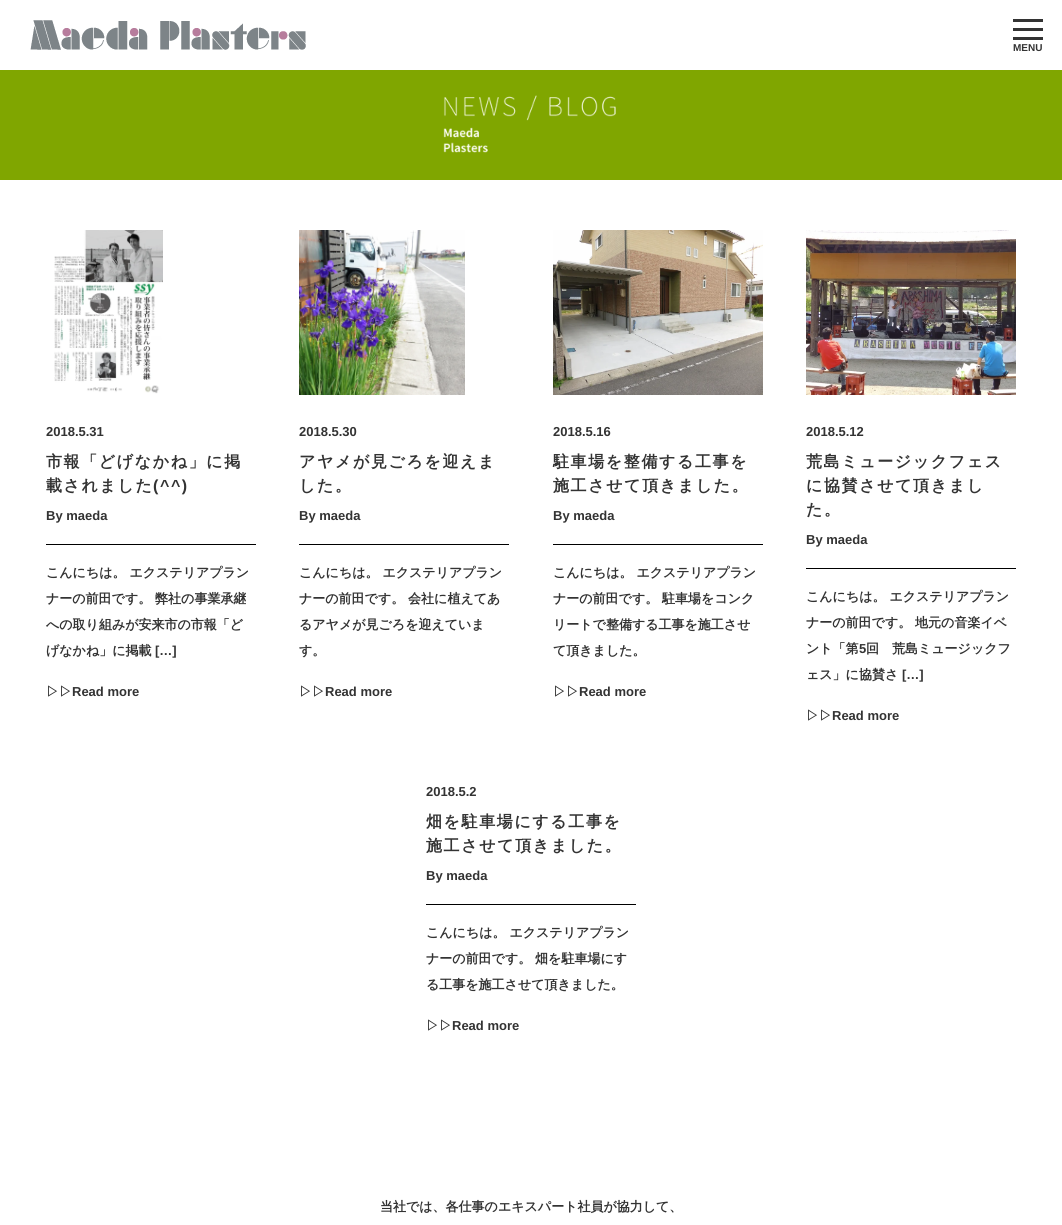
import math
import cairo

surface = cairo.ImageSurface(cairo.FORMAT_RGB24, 1062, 1225)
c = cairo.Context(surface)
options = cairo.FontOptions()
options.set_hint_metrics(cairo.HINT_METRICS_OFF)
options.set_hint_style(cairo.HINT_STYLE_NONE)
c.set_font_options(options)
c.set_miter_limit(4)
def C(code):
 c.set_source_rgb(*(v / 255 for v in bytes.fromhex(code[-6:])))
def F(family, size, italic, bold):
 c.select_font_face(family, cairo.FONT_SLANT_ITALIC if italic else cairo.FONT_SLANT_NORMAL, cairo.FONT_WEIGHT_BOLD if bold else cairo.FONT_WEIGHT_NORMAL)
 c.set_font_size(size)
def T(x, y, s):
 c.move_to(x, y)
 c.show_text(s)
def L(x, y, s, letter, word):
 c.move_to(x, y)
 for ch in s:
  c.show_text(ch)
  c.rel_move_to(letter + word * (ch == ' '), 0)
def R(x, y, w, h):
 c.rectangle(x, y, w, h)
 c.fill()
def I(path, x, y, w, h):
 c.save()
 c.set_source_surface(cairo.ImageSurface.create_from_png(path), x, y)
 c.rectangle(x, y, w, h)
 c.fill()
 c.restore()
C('ffffff')
c.paint()
I('1.png',30,20,276,30)
C('333333')
R(1013,19,30,3)
R(1013,28,30,3)
R(1013,37,30,3)
F('Liberation Sans',10,0,1)
T(1013,51,'MENU')
C('80a600')
R(0,70,1062,110)
I('2.png',443,95,173,58)
I('3.png',54,230,109,164)
F('Liberation Sans',13,0,1)
C('333333')
T(46,436,'2018.5.31')
F('WenQuanYi Zen Hei',16,0,1)
L(46,467,'市報「どげなかね」に掲',1.6,0)
L(46,491,'載されました',1.6,0)
F('Liberation Sans',16,0,1)
L(153,491,'(^^)',1.6,0)
F('Liberation Sans',13,0,1)
T(46,520,'By maeda')
C('000000')
R(46,544,210,1)
F('WenQuanYi Zen Hei',13,0,1)
C('333333')
T(46,577,'こんにちは。 エクステリアプラン')
T(46,603,'ナーの前田です。 弊社の事業承継')
T(46,629,'への取り組みが安来市の市報「ど')
T(46,655,'げなかね」に掲載')
F('Liberation Sans',13,0,1)
T(155,655,'[…]')
F('WenQuanYi Zen Hei',13,0,1)
T(46,696,'▷▷')
F('Liberation Sans',13,0,1)
T(72,696,'Read more')
I('4.png',299,230,166,165)
T(299,436,'2018.5.30')
F('WenQuanYi Zen Hei',16,0,1)
L(299,467,'アヤメが見ごろを迎えま',1.6,0)
L(299,491,'した。',1.6,0)
F('Liberation Sans',13,0,1)
T(299,520,'By maeda')
C('000000')
R(299,544,210,1)
F('WenQuanYi Zen Hei',13,0,1)
C('333333')
T(299,577,'こんにちは。 エクステリアプラン')
T(299,603,'ナーの前田です。 会社に植えてあ')
T(299,629,'るアヤメが見ごろを迎えていま')
T(299,655,'す。')
T(299,696,'▷▷')
F('Liberation Sans',13,0,1)
T(325,696,'Read more')
I('5.png',553,230,210,165)
T(553,436,'2018.5.16')
F('WenQuanYi Zen Hei',16,0,1)
L(553,467,'駐車場を整備する工事を',1.6,0)
L(553,491,'施工させて頂きました。',1.6,0)
F('Liberation Sans',13,0,1)
T(553,520,'By maeda')
C('000000')
R(553,544,210,1)
F('WenQuanYi Zen Hei',13,0,1)
C('333333')
T(553,577,'こんにちは。 エクステリアプラン')
T(553,603,'ナーの前田です。 駐車場をコンク')
T(553,629,'リートで整備する工事を施工させ')
T(553,655,'て頂きました。')
T(553,696,'▷▷')
F('Liberation Sans',13,0,1)
T(579,696,'Read more')
I('6.png',806,230,210,165)
T(806,436,'2018.5.12')
F('WenQuanYi Zen Hei',16,0,1)
L(806,467,'荒島ミュージックフェス',1.6,0)
L(806,491,'に協賛させて頂きまし',1.6,0)
L(806,515,'た。',1.6,0)
F('Liberation Sans',13,0,1)
T(806,544,'By maeda')
C('000000')
R(806,568,210,1)
F('WenQuanYi Zen Hei',13,0,1)
C('333333')
T(806,601,'こんにちは。 エクステリアプラン')
T(806,627,'ナーの前田です。 地元の音楽イベ')
T(806,653,'ント「第')
F('Liberation Sans',13,0,1)
T(859,653,'5')
F('WenQuanYi Zen Hei',13,0,1)
T(866,653,'回　荒島ミュージックフ')
T(806,679,'ェス」に協賛さ')
F('Liberation Sans',13,0,1)
T(902,679,'[…]')
F('WenQuanYi Zen Hei',13,0,1)
T(806,720,'▷▷')
F('Liberation Sans',13,0,1)
T(832,720,'Read more')
T(426,796,'2018.5.2')
F('WenQuanYi Zen Hei',16,0,1)
L(426,827,'畑を駐車場にする工事を',1.6,0)
L(426,851,'施工させて頂きました。',1.6,0)
F('Liberation Sans',13,0,1)
T(426,880,'By maeda')
C('000000')
R(426,904,210,1)
F('WenQuanYi Zen Hei',13,0,1)
C('333333')
T(426,937,'こんにちは。 エクステリアプラン')
T(426,963,'ナーの前田です。 畑を駐車場にす')
T(426,989,'る工事を施工させて頂きました。')
T(426,1030,'▷▷')
F('Liberation Sans',13,0,1)
T(452,1030,'Read more')
F('WenQuanYi Zen Hei',13,0,1)
T(380,1211,'当社では、各仕事のエキスパート社員が協力して、')
surface.write_to_png('o.png')
